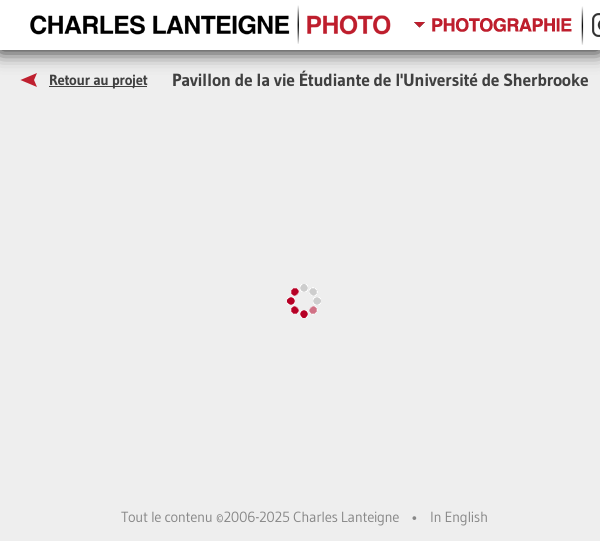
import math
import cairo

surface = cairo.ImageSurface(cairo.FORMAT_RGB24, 600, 541)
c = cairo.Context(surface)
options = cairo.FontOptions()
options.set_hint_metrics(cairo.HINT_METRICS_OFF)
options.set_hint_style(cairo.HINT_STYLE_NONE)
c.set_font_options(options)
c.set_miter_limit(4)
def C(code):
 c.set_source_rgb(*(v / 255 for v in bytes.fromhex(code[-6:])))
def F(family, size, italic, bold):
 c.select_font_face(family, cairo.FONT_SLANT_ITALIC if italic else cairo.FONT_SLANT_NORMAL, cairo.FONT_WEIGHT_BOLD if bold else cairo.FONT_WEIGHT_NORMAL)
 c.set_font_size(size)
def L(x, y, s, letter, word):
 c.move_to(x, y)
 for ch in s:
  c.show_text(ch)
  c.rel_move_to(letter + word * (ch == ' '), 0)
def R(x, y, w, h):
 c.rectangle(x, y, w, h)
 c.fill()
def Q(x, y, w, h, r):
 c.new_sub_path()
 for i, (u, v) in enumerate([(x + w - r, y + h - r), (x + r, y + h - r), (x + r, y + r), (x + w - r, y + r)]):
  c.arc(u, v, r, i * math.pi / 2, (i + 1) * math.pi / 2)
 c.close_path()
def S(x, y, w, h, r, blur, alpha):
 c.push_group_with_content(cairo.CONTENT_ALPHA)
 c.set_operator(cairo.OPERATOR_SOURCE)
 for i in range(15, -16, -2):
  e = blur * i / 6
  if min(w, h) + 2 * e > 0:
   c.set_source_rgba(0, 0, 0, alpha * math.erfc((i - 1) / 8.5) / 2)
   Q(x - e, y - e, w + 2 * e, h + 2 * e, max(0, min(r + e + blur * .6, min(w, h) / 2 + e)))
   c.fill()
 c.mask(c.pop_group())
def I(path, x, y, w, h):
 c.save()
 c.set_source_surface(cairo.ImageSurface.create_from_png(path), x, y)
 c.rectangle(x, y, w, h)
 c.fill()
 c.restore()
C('eeeeee')
c.paint()
I('5.png',20,73,17,14)
C('000000')
S(0,0,600,50,0,10,1)
C('ffffff')
R(0,0,600,50)
I('1.png',30,5,361,39)
I('2.png',414,18,158,14)
I('3.png',581,6,3,39)
I('4.png',592,13,8,24)
C('404040')
R(49,86,98,1)
F('Gudea',14.7,0,1)
L(49,85,'Retour au projet',-.37,0)
F('Gudea',17.6,0,1)
L(172,86,'Pavillon de la vie Étudiante de l\'Université de Sherbrooke',-.37,0)
I('6.png',287,284,34,34)
F('Gudea',14.7,0,0)
C('888888')
L(121,522,'Tout le contenu ©2006-2025 Charles Lanteigne',-.37,0)
L(411,522,'•',-.37,0)
L(430,522,'In English',-.37,0)
surface.write_to_png('o.png')
